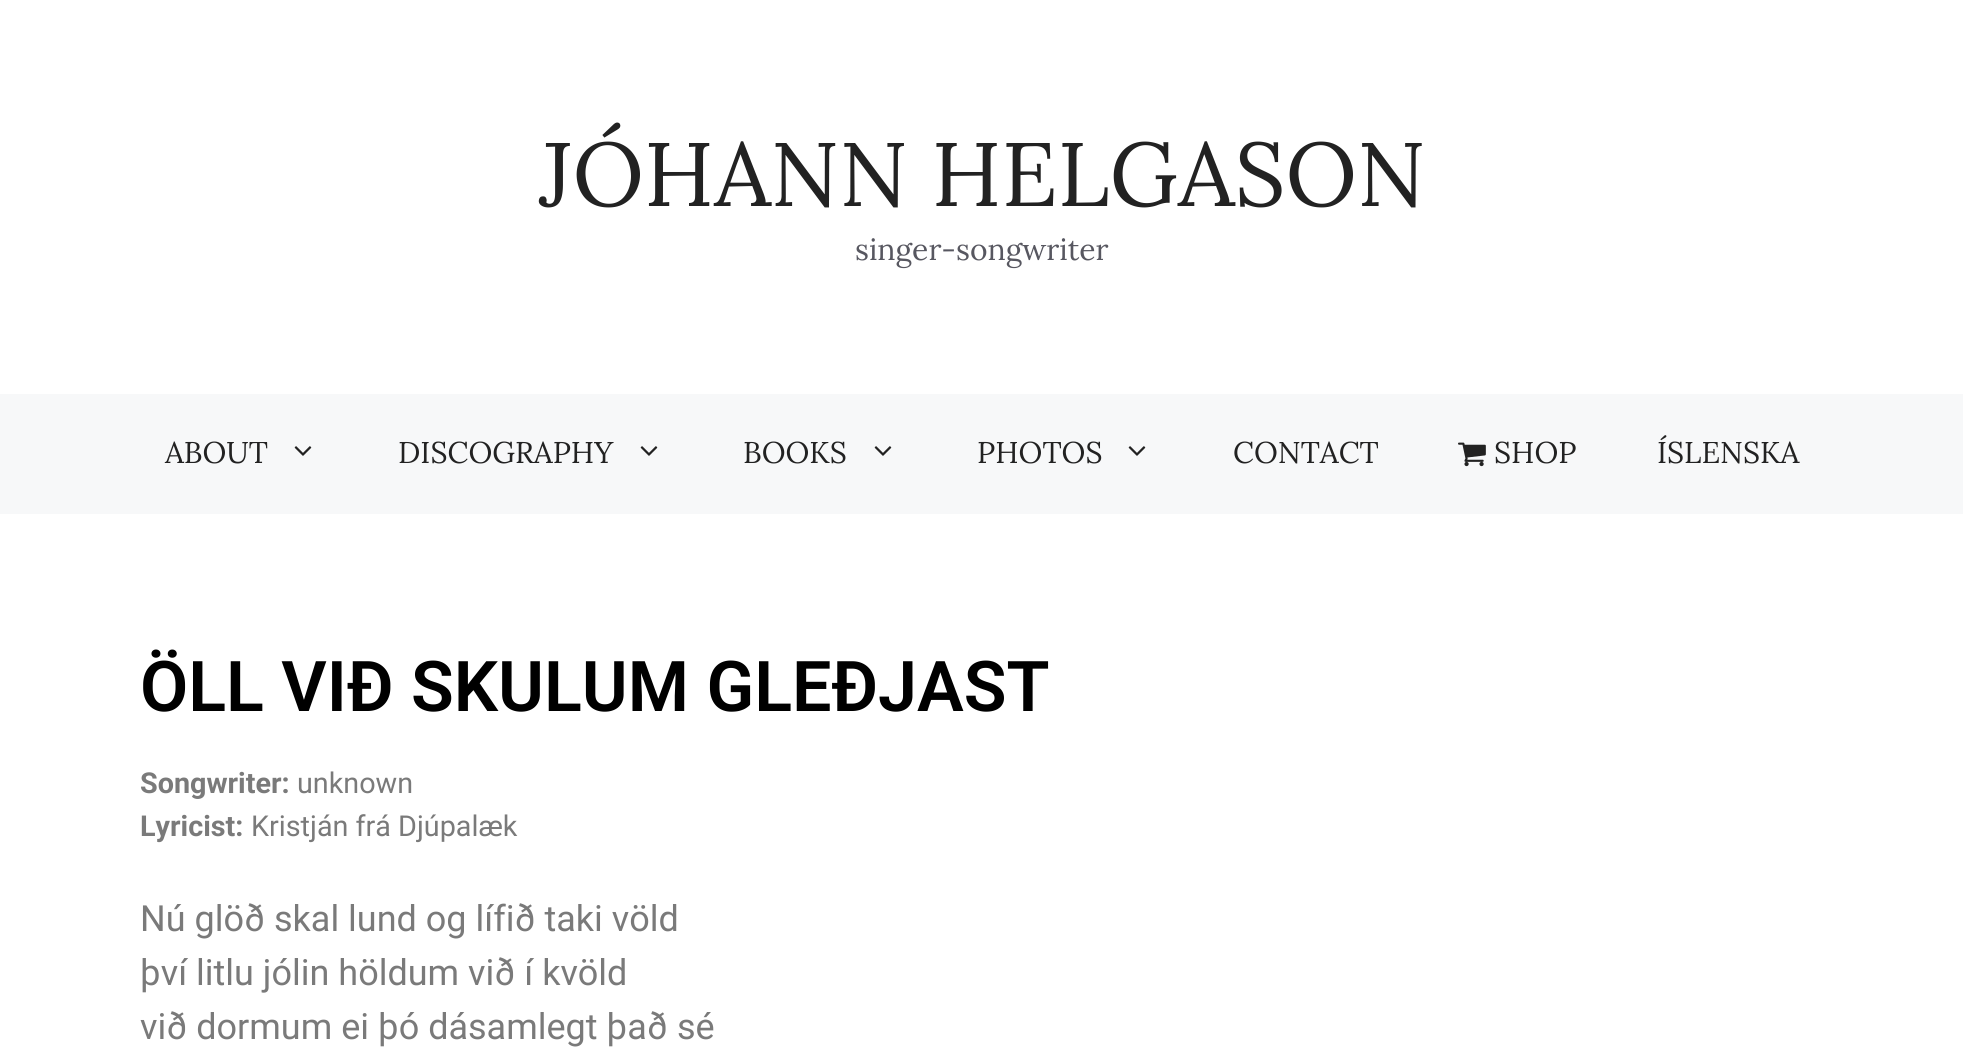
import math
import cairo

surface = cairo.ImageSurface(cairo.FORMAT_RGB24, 1963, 1056)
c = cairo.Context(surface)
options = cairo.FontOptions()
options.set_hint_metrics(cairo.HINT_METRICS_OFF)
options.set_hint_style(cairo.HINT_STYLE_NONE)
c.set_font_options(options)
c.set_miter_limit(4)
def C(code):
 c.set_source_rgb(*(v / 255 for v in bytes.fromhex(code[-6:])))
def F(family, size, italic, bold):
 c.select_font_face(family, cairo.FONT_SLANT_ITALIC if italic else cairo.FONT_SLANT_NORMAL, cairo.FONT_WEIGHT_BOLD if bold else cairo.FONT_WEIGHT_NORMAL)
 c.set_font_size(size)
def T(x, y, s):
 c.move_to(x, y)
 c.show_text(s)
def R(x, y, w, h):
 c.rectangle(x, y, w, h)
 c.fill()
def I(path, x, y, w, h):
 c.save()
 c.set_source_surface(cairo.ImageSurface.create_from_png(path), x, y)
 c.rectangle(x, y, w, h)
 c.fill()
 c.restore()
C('f7f8f9')
c.paint()
C('ffffff')
R(0,0,1963,394)
F('Lora',90,0,0)
C('222222')
T(539,206,'JÓHANN HELGASON')
F('Lora',30,0,0)
C('575760')
T(855,260,'singer-songwriter')
C('222222')
T(165,463,'ABOUT')
I('1.png',294,446,18,10)
T(398,463,'DISCOGRAPHY')
I('1.png',640,446,18,10)
T(743,463,'BOOKS')
I('1.png',874,446,18,10)
T(977,463,'PHOTOS')
I('1.png',1128,446,18,10)
T(1233,463,'CONTACT')
I('2.png',1458,442,28,25)
T(1494,463,'SHOP')
T(1657,463,'ÍSLENSKA')
C('ffffff')
R(0,514,1963,542)
F('Roboto SemiBold',70,0,0)
C('000000')
T(140,711,'ÖLL VIÐ SKULUM GLEÐJAST')
F('Roboto',28.75,0,1)
C('7a7a7a')
T(140,793,'Songwriter:')
F('Roboto',28.75,0,0)
T(297,793,'unknown')
F('Roboto',28.75,0,1)
T(140,836,'Lyricist:')
F('Roboto',28.75,0,0)
T(251,836,'Kristján frá Djúpalæk')
F('Roboto',36,0,0)
T(140,931,'Nú glöð skal lund og lífið taki völd')
T(140,985,'því litlu jólin höldum við í kvöld')
T(140,1039,'við dormum ei þó dásamlegt það sé')
surface.write_to_png('o.png')
